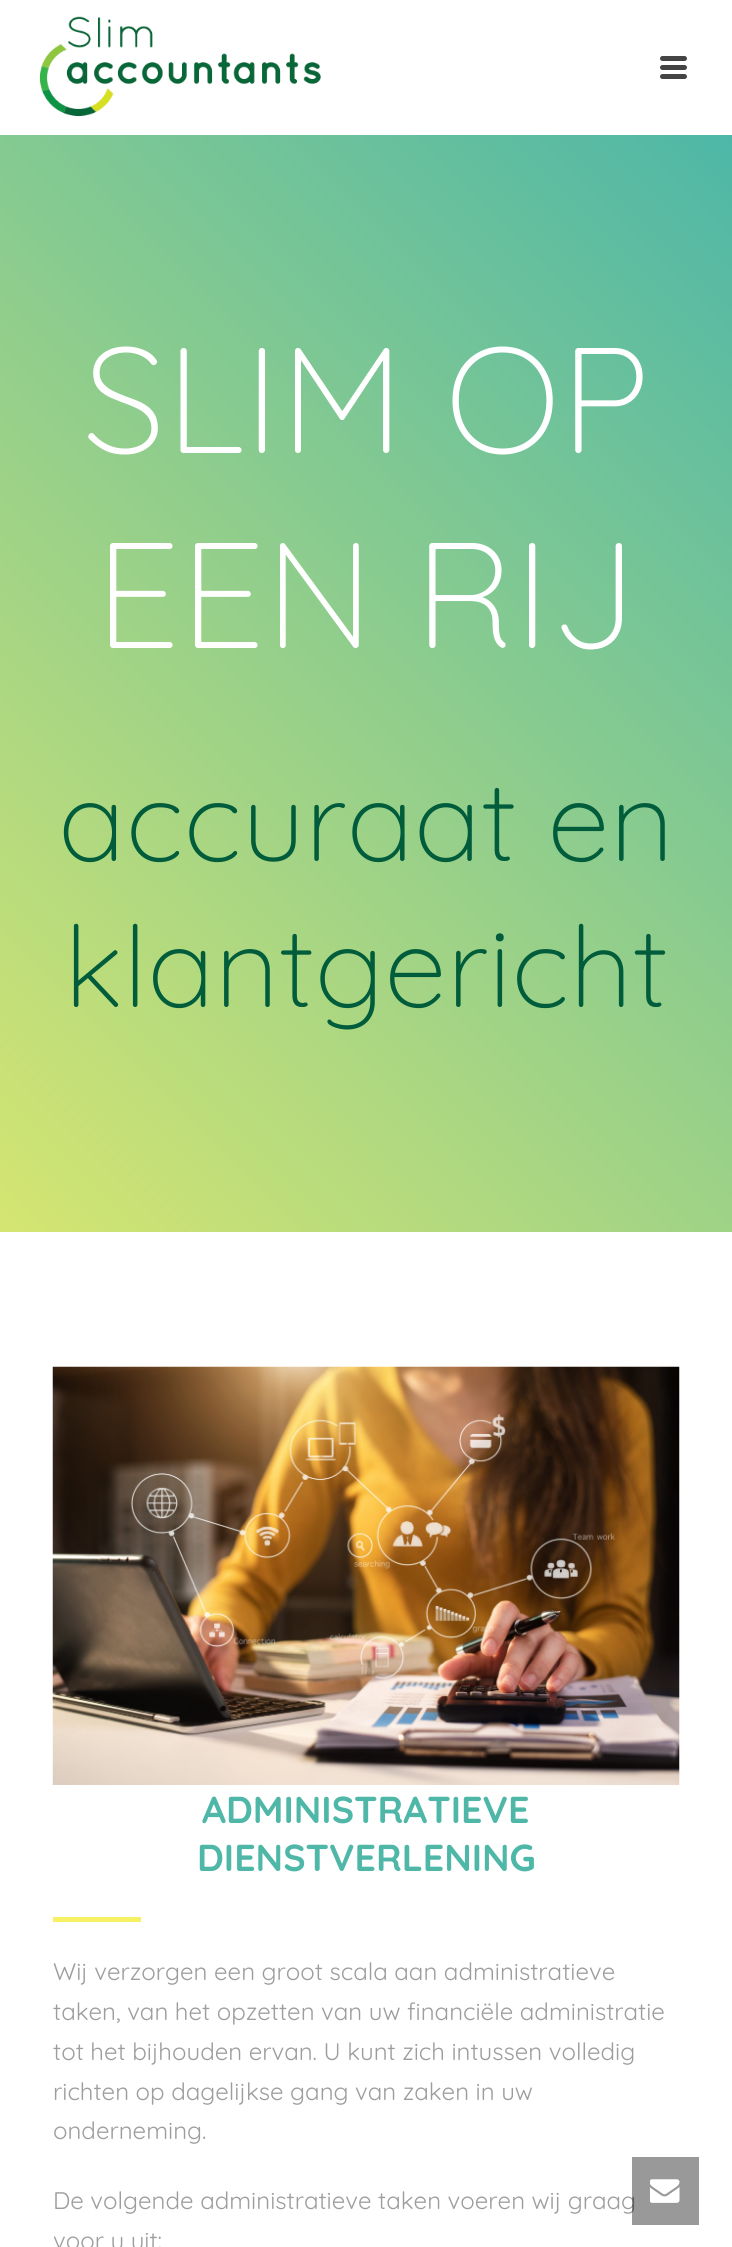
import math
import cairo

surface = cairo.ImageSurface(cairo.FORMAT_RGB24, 732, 2247)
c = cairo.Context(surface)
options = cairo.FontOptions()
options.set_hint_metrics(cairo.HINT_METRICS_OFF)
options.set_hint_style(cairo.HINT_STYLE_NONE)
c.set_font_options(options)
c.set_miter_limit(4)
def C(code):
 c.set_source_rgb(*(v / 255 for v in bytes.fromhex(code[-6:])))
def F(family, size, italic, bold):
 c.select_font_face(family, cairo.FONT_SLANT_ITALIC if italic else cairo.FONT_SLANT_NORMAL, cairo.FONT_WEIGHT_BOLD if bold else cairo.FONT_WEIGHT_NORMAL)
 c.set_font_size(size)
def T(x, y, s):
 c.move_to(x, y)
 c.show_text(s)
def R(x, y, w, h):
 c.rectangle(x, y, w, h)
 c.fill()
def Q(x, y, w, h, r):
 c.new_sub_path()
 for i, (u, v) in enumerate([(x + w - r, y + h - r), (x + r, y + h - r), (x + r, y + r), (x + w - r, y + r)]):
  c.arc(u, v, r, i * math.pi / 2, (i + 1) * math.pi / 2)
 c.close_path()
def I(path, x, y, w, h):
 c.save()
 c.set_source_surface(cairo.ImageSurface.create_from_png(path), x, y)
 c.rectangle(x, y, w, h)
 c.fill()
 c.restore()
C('ffffff')
c.paint()
I('1.png',39,16,282,101)
C('444444')
Q(660,56,27,5,2.5)
c.fill()
Q(660,65,27,5,2.5)
c.fill()
Q(660,74,27,5,2.5)
c.fill()
gradient = cairo.LinearGradient(-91,1140,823,226)
gradient.add_color_stop_rgba(0,0.835,0.898,0.443,1)
gradient.add_color_stop_rgba(1,0.306,0.718,0.655,1)
c.set_source(gradient)
R(0,135,732,1097)
F('Quicksand Light',150,0,0)
C('ffffff')
T(83,453,'SLIM OP')
T(95,648,'EEN RIJ')
F('Quicksand Light',112.5,0,0)
C('005c3a')
T(58,861,'accuraat en')
T(64,1007,'klantgericht')
I('2.png',52,1366,628,419)
F('Quicksand',37.5,0,1)
C('4eb7a7')
T(202,1823,'ADMINISTRATIEVE')
T(197,1871,'DIENSTVERLENING')
C('f6f163')
R(53,1917,88,5)
F('Quicksand',24,0,0)
C('9d9d9d')
T(53,1980,'Wij verzorgen een groot scala aan administratieve')
T(53,2020,'taken, van het opzetten van uw financiële administratie')
T(53,2060,'tot het bijhouden ervan. U kunt zich intussen volledig')
T(53,2100,'richten op dagelijkse gang van zaken in uw')
T(53,2139,'onderneming.')
T(53,2209,'De volgende administratieve taken voeren wij graag')
T(53,2249,'voor u uit:')
c.set_source_rgba(0,0,0,0.4)
R(632,2157,67,68)
I('3.png',650,2179,30,24)
surface.write_to_png('o.png')
